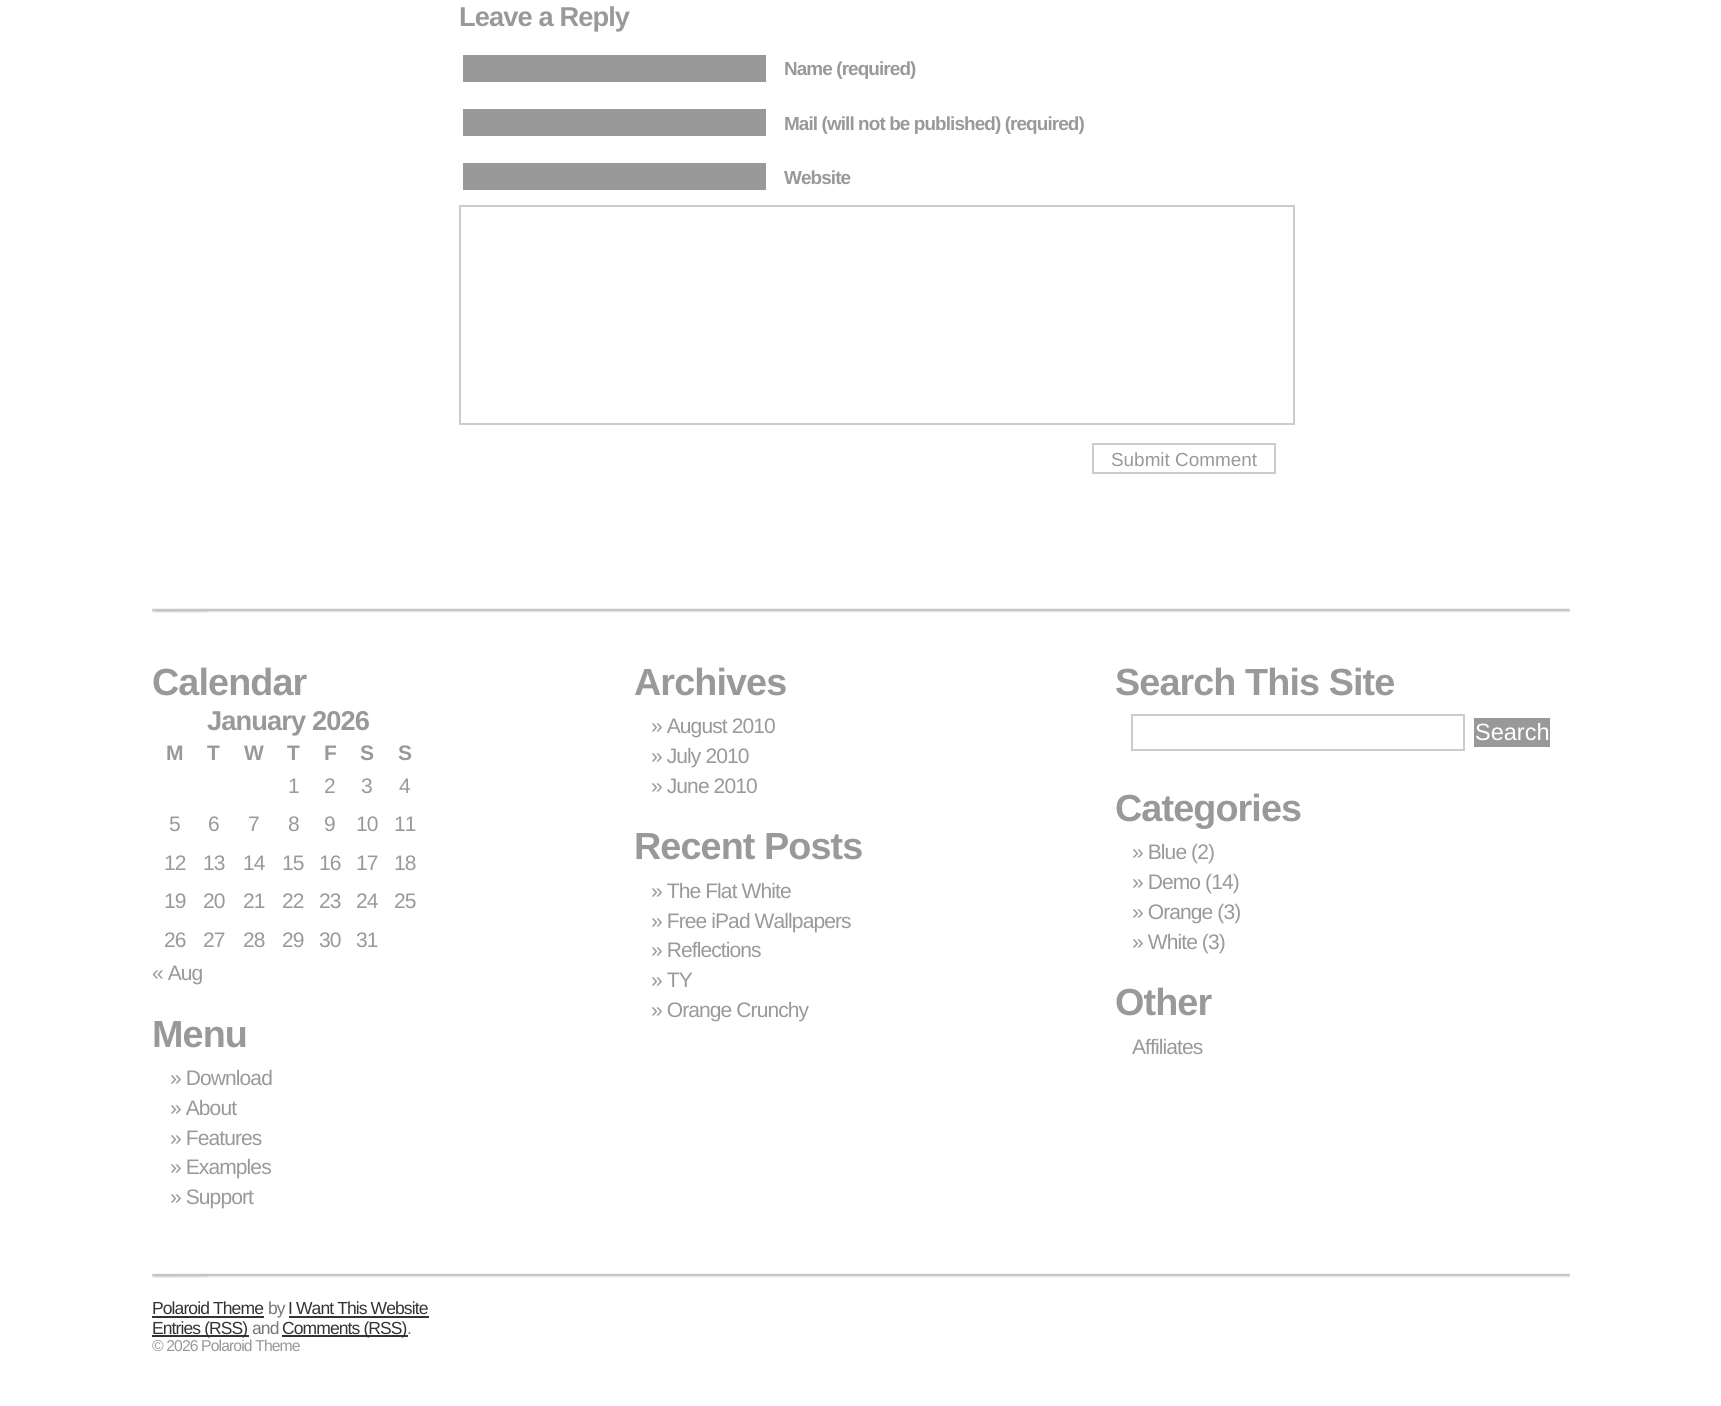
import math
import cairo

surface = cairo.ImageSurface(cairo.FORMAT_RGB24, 1721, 1406)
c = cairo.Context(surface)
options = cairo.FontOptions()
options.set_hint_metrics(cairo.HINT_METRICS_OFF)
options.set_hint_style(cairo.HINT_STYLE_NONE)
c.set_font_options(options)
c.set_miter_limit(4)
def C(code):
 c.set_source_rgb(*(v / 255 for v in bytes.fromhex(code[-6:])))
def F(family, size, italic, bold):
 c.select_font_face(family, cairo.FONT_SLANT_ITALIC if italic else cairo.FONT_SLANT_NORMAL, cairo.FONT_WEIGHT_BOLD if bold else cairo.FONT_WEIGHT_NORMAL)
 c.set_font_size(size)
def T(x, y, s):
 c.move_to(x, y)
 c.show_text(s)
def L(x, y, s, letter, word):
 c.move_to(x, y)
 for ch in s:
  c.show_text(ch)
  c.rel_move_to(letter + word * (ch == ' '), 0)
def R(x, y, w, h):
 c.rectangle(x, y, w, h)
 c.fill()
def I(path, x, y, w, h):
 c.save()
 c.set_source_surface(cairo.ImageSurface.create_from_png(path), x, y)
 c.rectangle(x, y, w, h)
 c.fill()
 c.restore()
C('ffffff')
c.paint()
F('Liberation Sans',27.25,0,1)
C('999999')
L(459,26,'Leave a Reply',-.9,0)
R(463,55,303,27)
F('Liberation Sans',18.9,0,1)
L(784,75,'Name (required)',-.9,0)
R(463,109,303,27)
L(784,130,'Mail (will not be published) (required)',-.9,0)
R(463,163,303,27)
L(784,184,'Website',-.9,0)
c.rectangle(460,206,834,218)
C('cccccc')
c.stroke()
c.rectangle(1093,444,182,29)
c.stroke()
F('Liberation Sans',18.9,0,0)
C('999999')
T(1111,466,'Submit Comment')
I('1.png',152,608,1418,5)
F('Liberation Sans',37.75,0,1)
L(152,695,'Calendar',-.9,0)
F('Liberation Sans',27.25,0,1)
L(207,730,'January 2026',-.9,0)
F('Liberation Sans',21,0,1)
L(166,760,'M',-.9,0)
L(207,760,'T',-.9,0)
L(244,760,'W',-.9,0)
L(287,760,'T',-.9,0)
L(324,760,'F',-.9,0)
L(360,760,'S',-.9,0)
L(398,760,'S',-.9,0)
F('Liberation Sans',21,0,0)
L(288,793,'1',-.9,0)
L(324,793,'2',-.9,0)
L(361,793,'3',-.9,0)
L(399,793,'4',-.9,0)
L(169,831,'5',-.9,0)
L(208,831,'6',-.9,0)
L(248,831,'7',-.9,0)
L(288,831,'8',-.9,0)
L(324,831,'9',-.9,0)
L(356,831,'10',-.9,0)
L(394,831,'11',-.9,0)
L(164,870,'12',-.9,0)
L(203,870,'13',-.9,0)
L(243,870,'14',-.9,0)
L(282,870,'15',-.9,0)
L(319,870,'16',-.9,0)
L(356,870,'17',-.9,0)
L(394,870,'18',-.9,0)
L(164,908,'19',-.9,0)
L(203,908,'20',-.9,0)
L(243,908,'21',-.9,0)
L(282,908,'22',-.9,0)
L(319,908,'23',-.9,0)
L(356,908,'24',-.9,0)
L(394,908,'25',-.9,0)
L(164,947,'26',-.9,0)
L(203,947,'27',-.9,0)
L(243,947,'28',-.9,0)
L(282,947,'29',-.9,0)
L(319,947,'30',-.9,0)
L(356,947,'31',-.9,0)
L(152,980,'« Aug',-.9,0)
F('Liberation Sans',37.75,0,1)
L(152,1047,'Menu',-.9,0)
F('Liberation Sans',21,0,0)
L(170,1085,'» Download',-.9,0)
L(170,1115,'» About',-.9,0)
L(170,1145,'» Features',-.9,0)
L(170,1174,'» Examples',-.9,0)
L(170,1204,'» Support',-.9,0)
F('Liberation Sans',37.75,0,1)
L(634,695,'Archives',-.9,0)
F('Liberation Sans',21,0,0)
L(651,733,'» August 2010',-.9,0)
L(651,763,'» July 2010',-.9,0)
L(651,793,'» June 2010',-.9,0)
F('Liberation Sans',37.75,0,1)
L(634,859,'Recent Posts',-.9,0)
F('Liberation Sans',21,0,0)
L(651,898,'» The Flat White',-.9,0)
L(651,928,'» Free iPad Wallpapers',-.9,0)
L(651,957,'» Reflections',-.9,0)
L(651,987,'» TY',-.9,0)
L(651,1017,'» Orange Crunchy',-.9,0)
F('Liberation Sans',37.75,0,1)
L(1115,695,'Search This Site',-.9,0)
c.rectangle(1132,715,332,35)
C('cccccc')
c.stroke()
C('999999')
R(1474,718,76,29)
F('Liberation Sans',23.5,0,0)
C('ffffff')
T(1475,740,'Search')
F('Liberation Sans',37.75,0,1)
C('999999')
L(1115,821,'Categories',-.9,0)
F('Liberation Sans',21,0,0)
L(1132,859,'» Blue (2)',-.9,0)
L(1132,889,'» Demo (14)',-.9,0)
L(1132,919,'» Orange (3)',-.9,0)
L(1132,949,'» White (3)',-.9,0)
F('Liberation Sans',37.75,0,1)
L(1115,1015,'Other',-.9,0)
F('Liberation Sans',21,0,0)
L(1132,1054,'Affiliates',-.9,0)
I('1.png',152,1273,1418,5)
F('Liberation Sans',17.5,0,0)
C('333333')
L(152,1314,'Polaroid Theme',-.9,0)
R(152,1316,112,2)
C('777777')
L(268,1314,'by',-.9,0)
C('333333')
L(288,1314,'I Want This Website',-.9,0)
R(289,1316,140,2)
R(152,1335,97,2)
L(152,1334,'Entries (RSS)',-.9,0)
C('777777')
L(252,1334,'and',-.9,0)
C('333333')
R(282,1335,126,2)
L(282,1334,'Comments (RSS)',-.9,0)
C('777777')
L(407,1334,'.',-.9,0)
F('Liberation Sans',15.75,0,0)
C('999999')
L(152,1351,'© 2026 Polaroid Theme',-.9,0)
surface.write_to_png('o.png')
